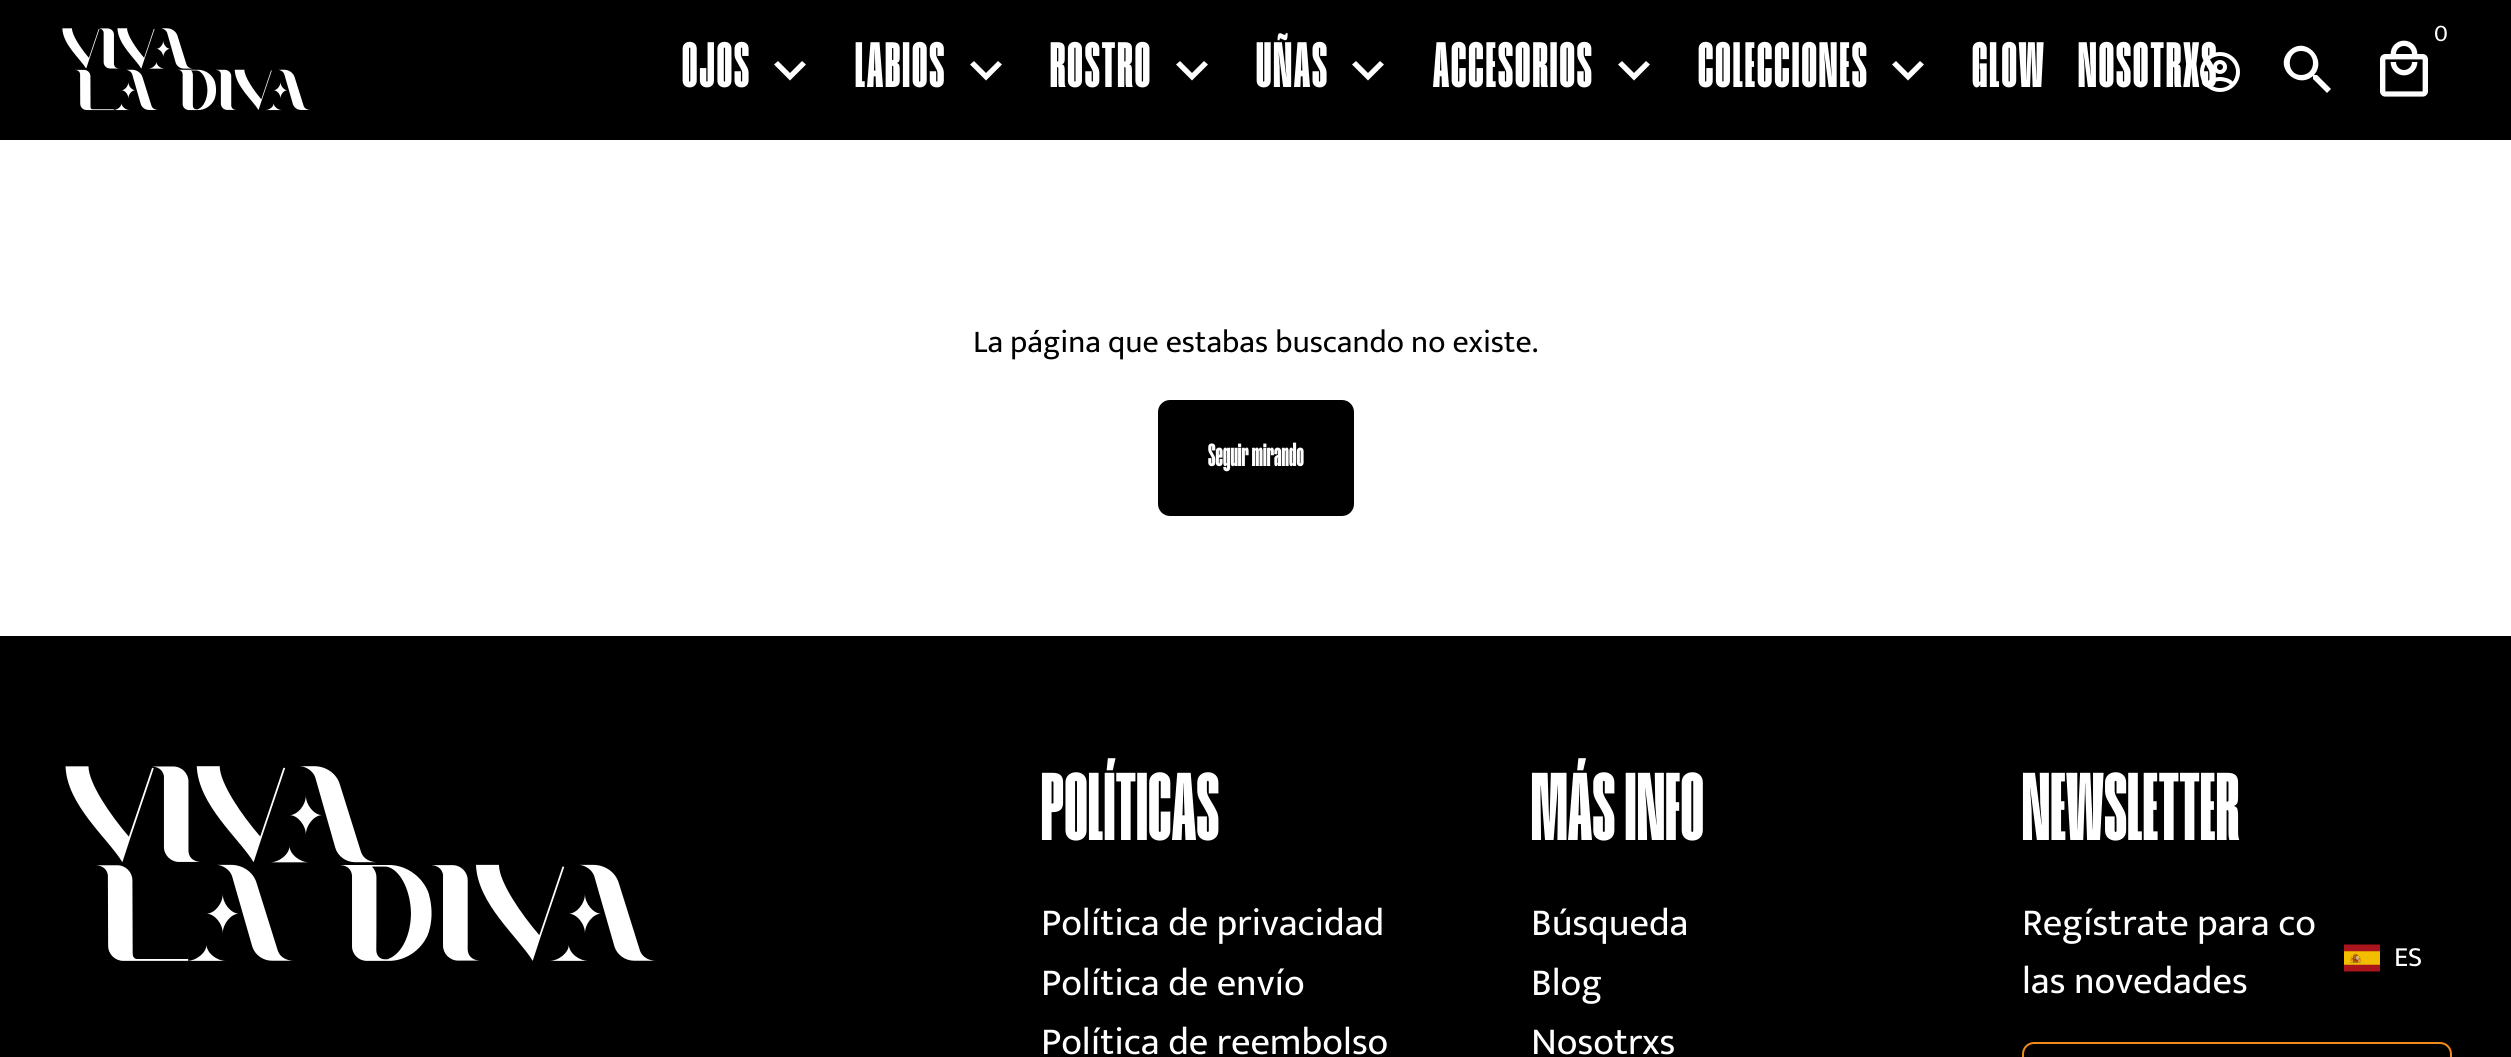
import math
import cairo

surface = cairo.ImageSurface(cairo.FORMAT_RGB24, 2511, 1057)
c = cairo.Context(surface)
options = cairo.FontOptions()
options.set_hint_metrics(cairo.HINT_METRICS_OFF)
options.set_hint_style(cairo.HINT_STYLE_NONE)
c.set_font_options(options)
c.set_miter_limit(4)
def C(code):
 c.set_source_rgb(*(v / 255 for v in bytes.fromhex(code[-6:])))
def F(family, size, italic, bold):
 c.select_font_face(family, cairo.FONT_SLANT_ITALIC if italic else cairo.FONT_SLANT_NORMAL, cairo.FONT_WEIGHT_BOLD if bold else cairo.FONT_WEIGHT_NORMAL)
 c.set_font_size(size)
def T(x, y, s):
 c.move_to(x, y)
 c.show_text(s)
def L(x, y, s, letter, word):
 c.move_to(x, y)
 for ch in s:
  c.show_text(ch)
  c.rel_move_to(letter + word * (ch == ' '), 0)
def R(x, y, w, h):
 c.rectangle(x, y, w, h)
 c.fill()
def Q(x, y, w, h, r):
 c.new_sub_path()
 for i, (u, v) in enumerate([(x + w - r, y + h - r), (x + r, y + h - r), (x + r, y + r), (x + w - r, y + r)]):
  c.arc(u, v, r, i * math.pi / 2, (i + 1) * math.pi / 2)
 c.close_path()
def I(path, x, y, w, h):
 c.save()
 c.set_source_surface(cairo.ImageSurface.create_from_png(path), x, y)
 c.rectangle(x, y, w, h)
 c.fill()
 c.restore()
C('ffffff')
c.paint()
C('000000')
R(0,0,2511,140)
I('1.png',62,28,248,83)
F('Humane',64,0,1)
C('ffffff')
L(682,87,'OJOS',2,0)
c.new_path()
c.move_to(778,61)
c.line_to(790,73)
c.line_to(802,61)
c.line_to(806,64.5)
c.line_to(790,80.5)
c.line_to(774,64.5)
c.close_path()
c.fill()
L(855,87,'LABIOS',2,0)
c.new_path()
c.move_to(974,61)
c.line_to(986,73)
c.line_to(998,61)
c.line_to(1002,64.5)
c.line_to(986,80.5)
c.line_to(970,64.5)
c.close_path()
c.fill()
L(1050,87,'ROSTRO',2,0)
c.new_path()
c.move_to(1180,61)
c.line_to(1192,73)
c.line_to(1204,61)
c.line_to(1208,64.5)
c.line_to(1192,80.5)
c.line_to(1176,64.5)
c.close_path()
c.fill()
L(1256,87,'UÑAS',2,0)
c.new_path()
c.move_to(1356,61)
c.line_to(1368,73)
c.line_to(1380,61)
c.line_to(1384,64.5)
c.line_to(1368,80.5)
c.line_to(1352,64.5)
c.close_path()
c.fill()
L(1433,87,'ACCESORIOS',2,0)
c.new_path()
c.move_to(1622,61)
c.line_to(1634,73)
c.line_to(1646,61)
c.line_to(1650,64.5)
c.line_to(1634,80.5)
c.line_to(1618,64.5)
c.close_path()
c.fill()
L(1698,87,'COLECCIONES',2,0)
c.new_path()
c.move_to(1896,61)
c.line_to(1908,73)
c.line_to(1920,61)
c.line_to(1924,64.5)
c.line_to(1908,80.5)
c.line_to(1892,64.5)
c.close_path()
c.fill()
L(1972,87,'GLOW',2,0)
L(2078,87,'NOSOTRXS',2,0)
F('Mukta',24,0,0)
T(2434,41,'0')
I('2.png',2380,40,48,57)
I('3.png',2200,52,40,40)
c.new_path()
c.move_to(2317,75)
c.line_to(2315,75)
c.line_to(2314,75)
c.curve_to(2328,59,2305,35,2289,51)
c.curve_to(2273,67,2297,90,2313,76)
c.line_to(2313,77)
c.line_to(2313,79)
c.line_to(2327,93)
c.line_to(2331,89)
c.close_path()
c.move_to(2301,75)
c.curve_to(2286,75,2286,51,2301,51)
c.curve_to(2317,51,2317,75,2301,75)
c.close_path()
c.fill()
F('Mukta',32,0,0)
C('000000')
T(973,352,'La página que estabas buscando no existe.')
Q(1159,401,194,114,11)
c.fill_preserve()
c.stroke()
F('Humane',32,0,1)
C('ffffff')
T(1208,466,'Seguir mirando')
C('000000')
R(0,636,2511,421)
I('4.png',65,766,590,195)
F('Humane',96,0,1)
C('ffffff')
L(1041,840,'POLÍTICAS',.5,0)
F('Mukta',38.5,0,0)
T(1041,935,'Política de privacidad')
T(1041,995,'Política de envío')
T(1041,1054,'Política de reembolso')
F('Humane',96,0,1)
L(1531,840,'MÁS INFO',.5,0)
F('Mukta',38.5,0,0)
T(1531,935,'Búsqueda')
T(1531,995,'Blog')
T(1531,1054,'Nosotrxs')
F('Humane',96,0,1)
L(2022,840,'NEWSLETTER',.5,0)
F('Mukta',38.5,0,0)
T(2022,935,'Regístrate para co')
T(2022,993,'las novedades')
Q(2023,1043,428,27,11)
C('f28a19')
c.stroke()
I('5.png',2344,944,36,28)
F('Mukta',28,0,0)
C('ffffff')
T(2394,966,'ES')
surface.write_to_png('o.png')
